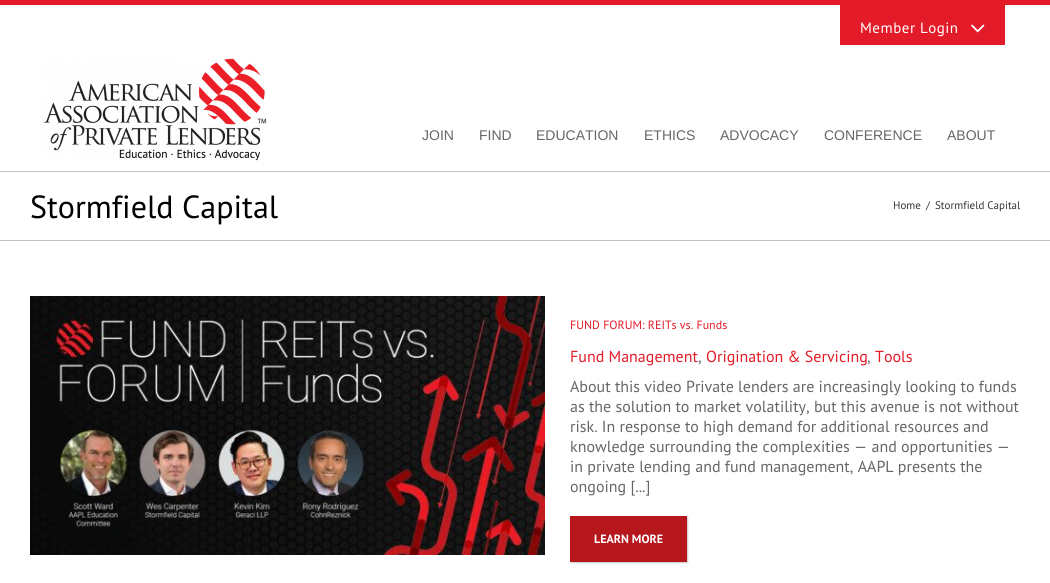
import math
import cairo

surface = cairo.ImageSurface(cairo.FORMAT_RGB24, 1050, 583)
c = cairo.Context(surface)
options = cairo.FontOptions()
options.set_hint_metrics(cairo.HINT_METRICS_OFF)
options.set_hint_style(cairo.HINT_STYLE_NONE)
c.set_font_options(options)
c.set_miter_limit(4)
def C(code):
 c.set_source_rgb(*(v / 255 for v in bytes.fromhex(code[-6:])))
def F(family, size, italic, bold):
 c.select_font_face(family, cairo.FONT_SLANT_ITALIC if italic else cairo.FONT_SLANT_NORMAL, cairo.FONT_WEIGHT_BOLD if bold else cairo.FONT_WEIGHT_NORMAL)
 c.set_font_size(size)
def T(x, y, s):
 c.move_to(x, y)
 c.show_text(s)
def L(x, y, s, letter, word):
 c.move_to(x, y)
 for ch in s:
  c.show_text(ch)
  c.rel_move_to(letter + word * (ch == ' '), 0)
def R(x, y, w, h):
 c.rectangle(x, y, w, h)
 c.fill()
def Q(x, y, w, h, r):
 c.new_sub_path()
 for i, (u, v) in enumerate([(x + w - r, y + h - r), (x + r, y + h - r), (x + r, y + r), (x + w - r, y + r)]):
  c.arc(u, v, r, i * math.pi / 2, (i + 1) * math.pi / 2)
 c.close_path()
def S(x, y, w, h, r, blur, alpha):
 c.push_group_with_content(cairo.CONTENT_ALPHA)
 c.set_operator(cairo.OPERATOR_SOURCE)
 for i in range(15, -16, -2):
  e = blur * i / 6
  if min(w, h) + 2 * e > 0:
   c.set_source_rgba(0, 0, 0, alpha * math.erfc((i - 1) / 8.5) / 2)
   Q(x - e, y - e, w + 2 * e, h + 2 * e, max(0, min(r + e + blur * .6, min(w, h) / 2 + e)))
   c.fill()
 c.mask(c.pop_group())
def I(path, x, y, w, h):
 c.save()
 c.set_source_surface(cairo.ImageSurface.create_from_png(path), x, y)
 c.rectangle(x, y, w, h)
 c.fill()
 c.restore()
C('ffffff')
c.paint()
C('e31b28')
R(0,0,1050,5)
R(840,5,165,40)
F('PT Sans',15,0,0)
C('ffffff')
L(860,33,'Member Login',.5,0)
I('1.png',971,24,14,9)
I('2.png',43,58,224,103)
F('Liberation Sans',14,0,0)
C('666666')
T(422,140,'JOIN')
T(479,140,'FIND')
T(536,140,'EDUCATION')
T(644,140,'ETHICS')
T(720,140,'ADVOCACY')
T(824,140,'CONFERENCE')
T(947,140,'ABOUT')
C('c1c1c1')
R(0,171,1050,1)
R(0,240,1050,1)
F('PT Sans',32,0,0)
C('000000')
T(30,218,'Stormfield Capital')
F('PT Sans',11,0,0)
C('333333')
T(893,209,'Home')
T(926,209,'/')
T(935,209,'Stormfield Capital')
I('3.png',30,296,515,259)
F('PT Sans',12,0,0)
C('e31b28')
T(570,329,'FUND FORUM: REITs vs. Funds')
F('PT Sans',16,0,0)
T(570,362,'Fund Management')
C('666666')
T(698,362,',')
C('e31b28')
T(706,362,'Origination & Servicing')
C('666666')
T(867,362,',')
C('e31b28')
T(875,362,'Tools')
C('666666')
T(570,392,'About this video Private lenders are increasingly looking to funds')
T(570,412,'as the solution to market volatility, but this avenue is not without')
T(570,432,'risk. In response to high demand for additional resources and')
T(570,452,'knowledge surrounding the complexities — and opportunities —')
T(570,472,'in private lending and fund management, AAPL presents the')
T(570,492,'ongoing [...]')
C('000000')
S(571,517,117,46,0,.5,.2)
C('b6171d')
R(570,516,117,46)
F('PT Sans',12,0,1)
C('ffffff')
T(594,543,'LEARN MORE')
surface.write_to_png('o.png')
